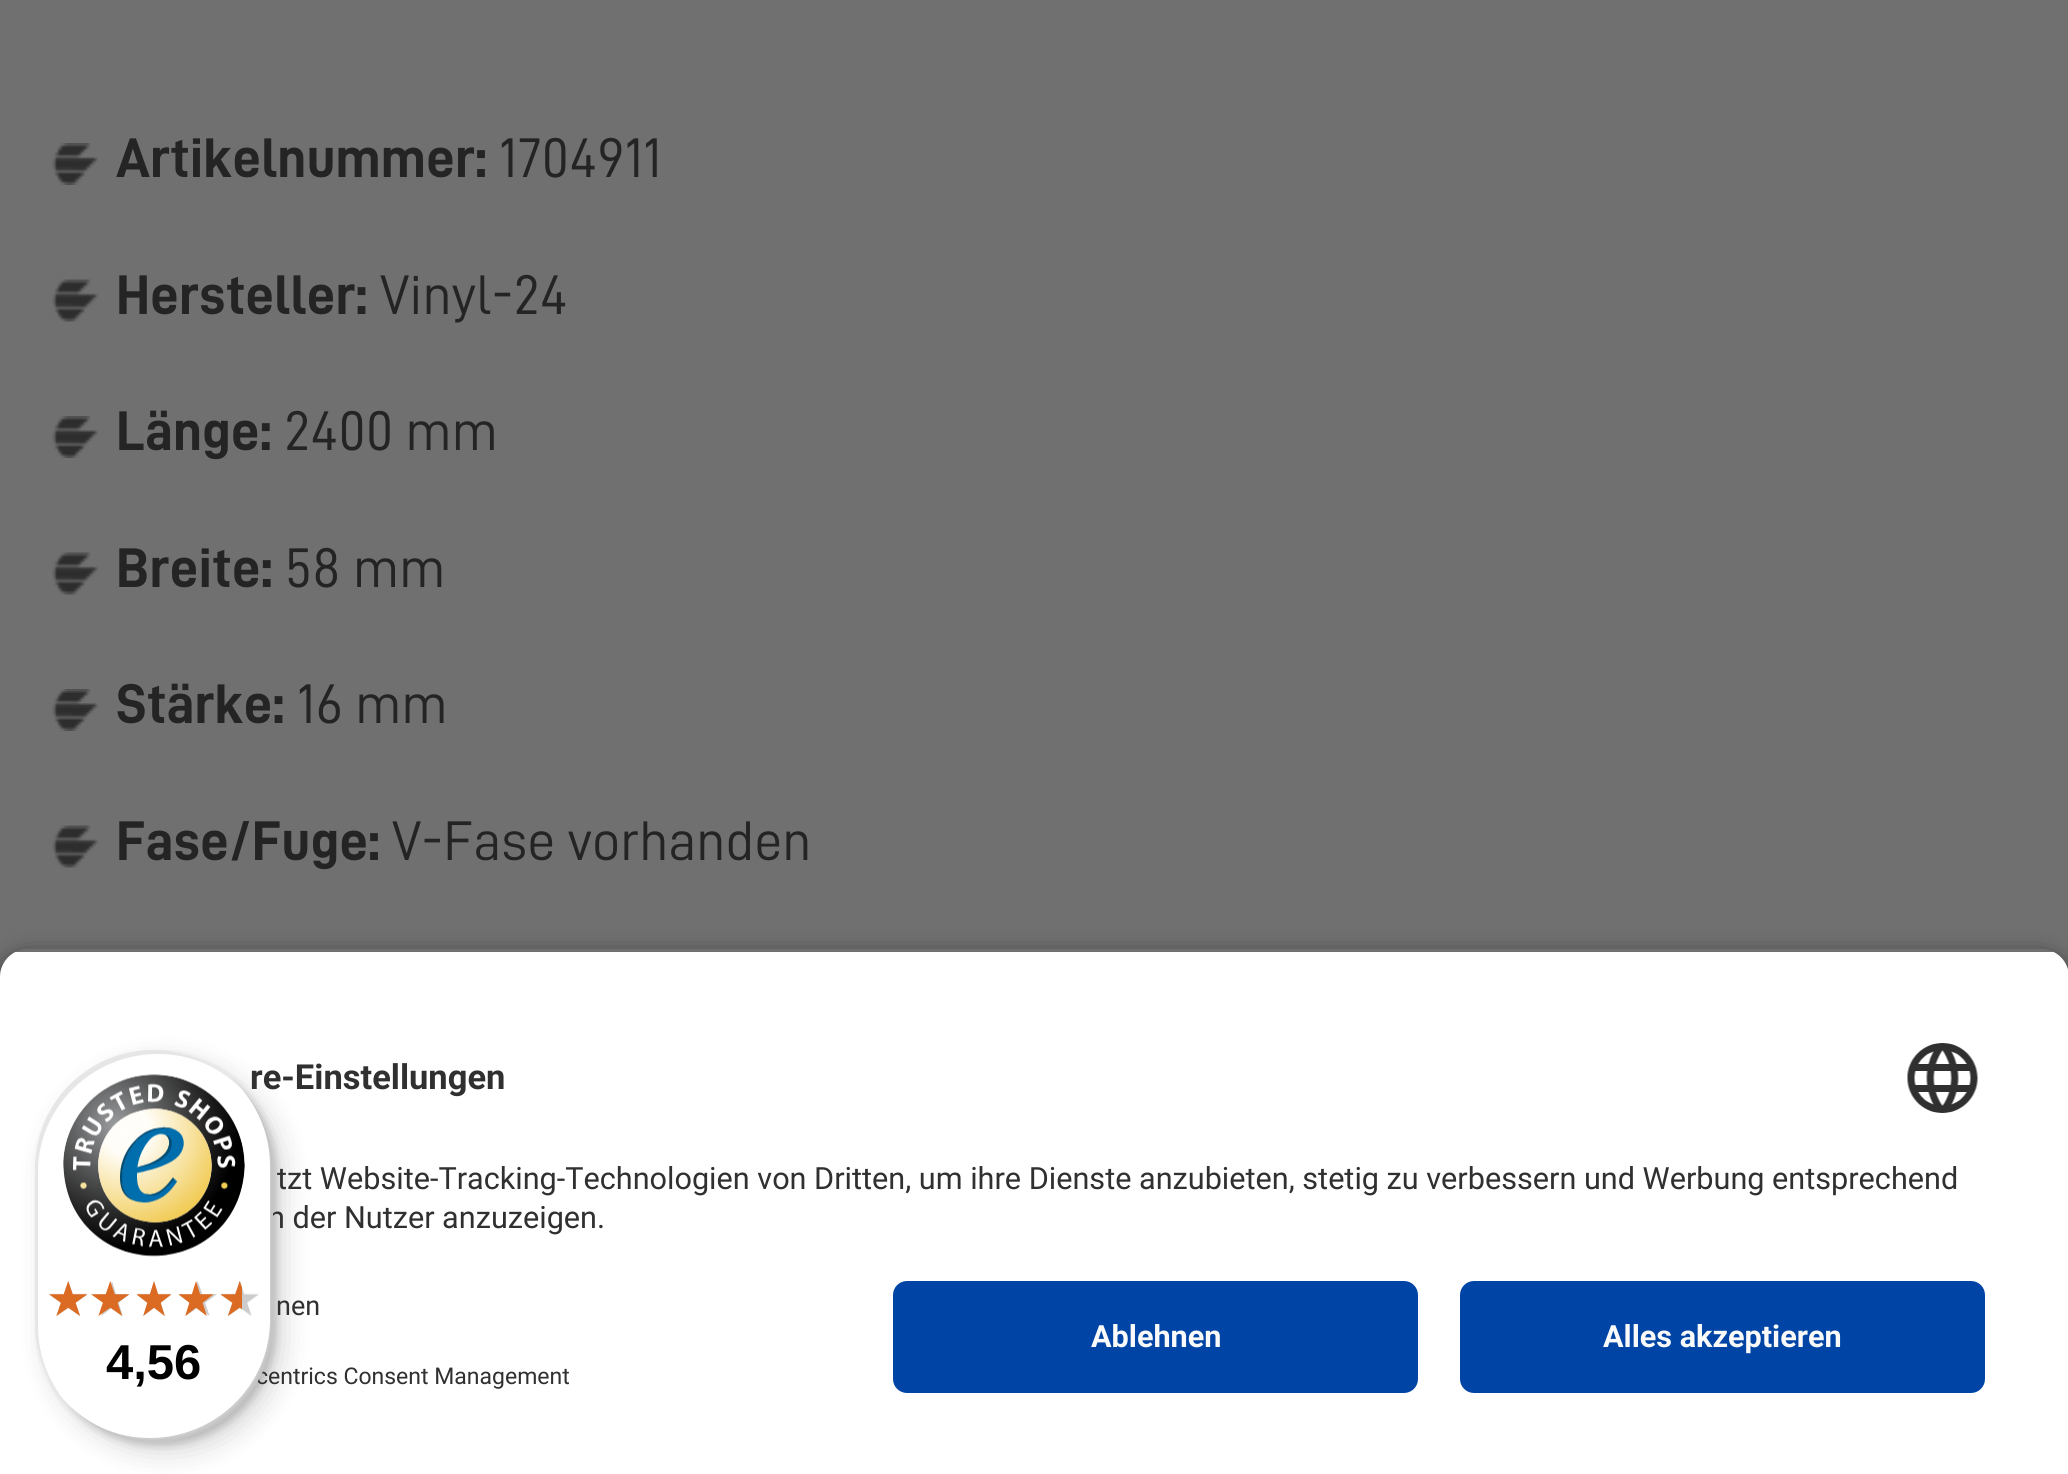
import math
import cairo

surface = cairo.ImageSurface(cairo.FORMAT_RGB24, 2068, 1474)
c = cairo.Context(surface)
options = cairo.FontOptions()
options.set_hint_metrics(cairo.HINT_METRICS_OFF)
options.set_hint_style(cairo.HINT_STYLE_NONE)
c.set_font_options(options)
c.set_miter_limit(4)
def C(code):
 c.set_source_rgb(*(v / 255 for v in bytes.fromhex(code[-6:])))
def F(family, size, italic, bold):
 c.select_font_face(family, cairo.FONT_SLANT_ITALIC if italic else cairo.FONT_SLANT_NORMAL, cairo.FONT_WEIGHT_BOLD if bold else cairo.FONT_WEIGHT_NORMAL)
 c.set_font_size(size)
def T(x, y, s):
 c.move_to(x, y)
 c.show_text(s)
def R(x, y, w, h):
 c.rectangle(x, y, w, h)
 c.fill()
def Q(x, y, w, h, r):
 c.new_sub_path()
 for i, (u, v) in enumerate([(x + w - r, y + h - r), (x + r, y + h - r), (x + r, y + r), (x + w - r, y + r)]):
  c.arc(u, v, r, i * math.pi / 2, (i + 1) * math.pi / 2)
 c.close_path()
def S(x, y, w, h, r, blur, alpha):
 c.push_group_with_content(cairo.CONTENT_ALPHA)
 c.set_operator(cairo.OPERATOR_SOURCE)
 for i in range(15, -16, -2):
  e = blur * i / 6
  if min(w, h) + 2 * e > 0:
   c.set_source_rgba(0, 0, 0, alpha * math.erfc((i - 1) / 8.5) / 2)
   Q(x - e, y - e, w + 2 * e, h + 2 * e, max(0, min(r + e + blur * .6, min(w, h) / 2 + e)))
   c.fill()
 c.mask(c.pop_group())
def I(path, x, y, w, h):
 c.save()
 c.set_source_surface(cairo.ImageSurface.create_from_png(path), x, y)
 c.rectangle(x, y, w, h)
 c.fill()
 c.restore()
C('707070')
c.paint()
I('1.png',52,143,46,42)
F('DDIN',56,0,1)
C('242424')
T(116,177,'Artikelnummer:')
F('DDIN',56,0,0)
T(499,177,'1704911')
I('2.png',52,279,46,43)
F('DDIN',56,0,1)
T(116,314,'Hersteller:')
F('DDIN',56,0,0)
T(380,314,'Vinyl-24')
I('1.png',52,416,46,42)
F('DDIN',56,0,1)
T(116,450,'Länge:')
F('DDIN',56,0,0)
T(284,450,'2400 mm')
I('2.png',52,552,46,43)
F('DDIN',56,0,1)
T(116,587,'Breite:')
F('DDIN',56,0,0)
T(285,587,'58 mm')
I('1.png',52,689,46,42)
F('DDIN',56,0,1)
T(116,723,'Stärke:')
F('DDIN',56,0,0)
T(297,723,'16 mm')
I('2.png',52,825,46,43)
F('DDIN',56,0,1)
T(116,860,'Fase/Fuge:')
F('DDIN',56,0,0)
T(392,860,'V-Fase vorhanden')
c.save()
c.set_fill_rule(cairo.FILL_RULE_EVEN_ODD)
c.new_path()
c.move_to(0,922)
c.line_to(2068,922)
c.line_to(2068,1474)
c.line_to(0,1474)
c.close_path()
c.move_to(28,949)
c.line_to(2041,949)
c.curve_to(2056.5,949,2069,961.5,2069,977)
c.line_to(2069,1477)
c.line_to(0,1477)
c.line_to(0,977)
c.curve_to(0,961.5,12.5,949,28,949)
c.close_path()
c.clip()
C('000000')
S(0,959,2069,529,28,12,.8)
c.restore()
c.save()
c.new_path()
c.move_to(28,949)
c.line_to(2041,949)
c.curve_to(2056.5,949,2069,961.5,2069,977)
c.line_to(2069,1253)
c.line_to(0,1253)
c.line_to(0,977)
c.curve_to(0,961.5,12.5,949,28,949)
c.close_path()
c.clip()
C('ffffff')
R(0,952,2068,301)
c.restore()
C('ffffff')
R(0,1253,2068,221)
C('000000')
S(46,1061,238,392,119,14,.15)
S(39,1054,238,392,119,3.5,.15)
F('Roboto',34.5,0,1)
C('303030')
T(250,1089,'re-Einstellungen')
F('Roboto',30.62,0,0)
T(268,1228,'n der Nutzer anzuzeigen.')
F('Roboto',23,0,0)
T(256,1384,'centrics Consent Management')
C('ffffff')
Q(35,1050,238,392,119)
c.fill()
c.set_source_rgba(0,0,0,0.1)
c.new_path()
c.move_to(158,1054)
c.curve_to(193,1054,224,1069,246,1094)
c.curve_to(224,1067,191,1050,154,1050)
c.curve_to(88,1050,35,1103,35,1169)
c.line_to(35,1323)
c.curve_to(35,1355,48,1385,69,1406)
c.curve_to(50,1385,38,1357,38,1326)
c.line_to(38,1172)
c.curve_to(38,1107,92,1054,158,1054)
c.close_path()
c.fill()
c.set_source_rgba(0,0,0,0.2)
c.new_path()
c.move_to(62,1398)
c.curve_to(84,1425,117,1442,154,1442)
c.curve_to(220,1442,273,1389,273,1323)
c.line_to(273,1169)
c.curve_to(273,1137,260,1107,239,1086)
c.curve_to(258,1107,270,1135,270,1166)
c.line_to(270,1320)
c.curve_to(270,1385,216,1438,150,1438)
c.curve_to(115,1438,84,1423,62,1398)
c.close_path()
c.fill()
c.set_source_rgba(0.196,0.196,0.196,0.2)
c.new_path()
c.move_to(73,1410)
c.curve_to(94,1430,123,1442,154,1442)
c.curve_to(220,1442,273,1389,273,1323)
c.line_to(273,1169)
c.curve_to(273,1138,261,1109,241,1088)
c.curve_to(260,1109,271,1137,271,1167)
c.line_to(271,1321)
c.curve_to(271,1387,218,1440,152,1440)
c.curve_to(122,1440,94,1429,73,1410)
c.close_path()
c.fill()
c.set_source_rgba(1,1,1,0.3)
c.new_path()
c.move_to(66,1403)
c.curve_to(87,1427,119,1442,154,1442)
c.curve_to(220,1442,273,1389,273,1323)
c.line_to(273,1169)
c.curve_to(273,1134,258,1102,234,1081)
c.curve_to(257,1102,271,1133,271,1167)
c.line_to(271,1321)
c.curve_to(271,1387,218,1440,152,1440)
c.curve_to(118,1440,87,1426,66,1403)
c.close_path()
c.fill()
I('3.png',63,1074,182,183)
I('4.png',49,1281,38,35)
I('5.png',95,1281,34,35)
I('6.png',137,1281,34,35)
I('7.png',179,1281,38,35)
I('8.png',221,1281,38,35)
I('9.png',49,1281,38,35)
I('10.png',91,1281,38,35)
I('11.png',137,1281,35,35)
I('12.png',179,1281,35,35)
I('13.png',221,1281,21,35)
F('Liberation Sans',49,0,1)
C('000000')
T(106,1379,'4,56')
I('14.png',1907,1043,71,70)
F('Roboto',30.62,0,0)
C('303030')
T(277,1189,'tzt Website-Tracking-Technologien von Dritten, um ihre Dienste anzubieten, stetig zu verbessern und Werbung entsprechend')
F('Roboto',27,0,0)
T(276,1315,'nen')
C('0045a5')
Q(893,1281,525,112,14)
c.fill()
F('Roboto',30.62,0,1)
C('fafafa')
T(1091,1347,'Ablehnen')
C('0045a5')
Q(1460,1281,525,112,14)
c.fill()
C('fafafa')
T(1603,1347,'Alles akzeptieren')
surface.write_to_png('o.png')
